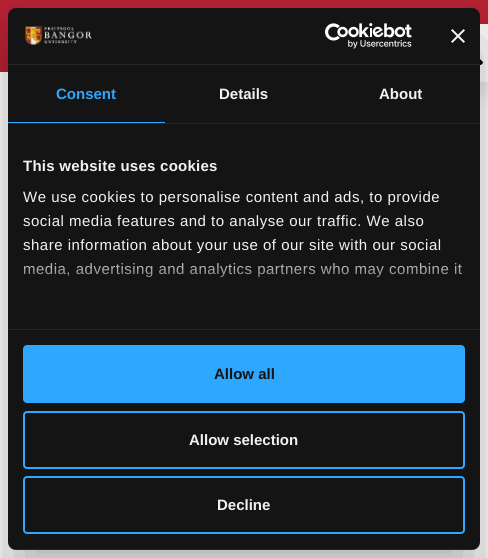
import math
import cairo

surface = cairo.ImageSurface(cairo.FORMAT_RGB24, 488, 558)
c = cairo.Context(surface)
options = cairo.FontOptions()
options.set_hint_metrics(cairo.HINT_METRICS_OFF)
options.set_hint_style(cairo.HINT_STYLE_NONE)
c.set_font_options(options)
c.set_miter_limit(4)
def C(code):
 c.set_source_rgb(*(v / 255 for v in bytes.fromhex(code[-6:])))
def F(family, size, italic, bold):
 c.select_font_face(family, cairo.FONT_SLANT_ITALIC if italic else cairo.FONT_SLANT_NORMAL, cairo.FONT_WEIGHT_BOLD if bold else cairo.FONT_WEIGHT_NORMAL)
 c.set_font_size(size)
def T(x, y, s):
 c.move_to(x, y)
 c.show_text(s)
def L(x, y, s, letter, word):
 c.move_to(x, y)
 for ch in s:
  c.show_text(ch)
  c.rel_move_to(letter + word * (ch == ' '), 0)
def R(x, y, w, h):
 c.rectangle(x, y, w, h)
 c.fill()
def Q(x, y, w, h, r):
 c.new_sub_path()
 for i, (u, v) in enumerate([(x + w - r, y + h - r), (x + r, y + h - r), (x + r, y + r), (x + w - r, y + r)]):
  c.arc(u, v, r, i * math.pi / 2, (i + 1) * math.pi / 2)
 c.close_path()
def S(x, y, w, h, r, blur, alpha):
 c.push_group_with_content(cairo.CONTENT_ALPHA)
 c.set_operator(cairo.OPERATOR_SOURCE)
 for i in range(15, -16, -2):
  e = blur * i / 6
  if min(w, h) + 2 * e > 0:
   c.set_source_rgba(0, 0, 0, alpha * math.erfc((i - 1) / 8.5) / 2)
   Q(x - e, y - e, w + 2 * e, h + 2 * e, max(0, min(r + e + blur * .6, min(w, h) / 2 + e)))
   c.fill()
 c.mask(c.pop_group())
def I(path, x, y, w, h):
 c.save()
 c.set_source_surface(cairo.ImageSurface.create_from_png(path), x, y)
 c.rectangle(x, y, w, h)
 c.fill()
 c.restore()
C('ffffff')
c.paint()
C('b82234')
R(0,0,488,72)
C('000000')
S(411,34,77,58,0,10,.1)
C('ffffff')
R(480,24,8,58)
I('1.png',480,59,3,6)
C('000000')
S(8,40,472,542,8,34,.3)
C('141414')
Q(8,8,472,542,8)
c.fill()
C('272727')
R(8,64,472,1)
I('2.png',25,26,67,20)
I('3.png',325,23,87,26)
I('4.png',451,29,14,14)
R(8,123,472,1)
C('2ea7ff')
R(8,122,157,1)
F('Liberation Sans',15,0,1)
T(56,99,'Consent')
C('f2f2f2')
T(219,99,'Details')
T(379,99,'About')
C('272727')
R(8,329,472,1)
C('f2f2f2')
L(23,171,'This website uses cookies',.25,0)
F('Liberation Sans',15,0,0)
L(23,202,'We use cookies to personalise content and ads, to provide',.5,0)
L(23,226,'social media features and to analyse our traffic. We also',.5,0)
L(23,250,'share information about your use of our site with our social',.5,0)
L(23,274,'media, advertising and analytics partners who may combine it',.5,0)
gradient = cairo.LinearGradient(238,329,238,254)
gradient.add_color_stop_rgba(0,0.078,0.078,0.078,1)
gradient.add_color_stop_rgba(.5,0.078,0.078,0.078,.8)
gradient.add_color_stop_rgba(1,0.078,0.078,0.078,0)
c.set_source(gradient)
R(24,263,438,15)
c.save()
Q(8,8,472,542,8)
c.clip()
c.set_source_rgba(1,1,1,0.08)
R(8,549,472,1)
c.restore()
C('2ea7ff')
Q(24,346,440,56,3)
c.fill_preserve()
c.stroke()
F('Liberation Sans',15,0,1)
C('141414')
T(214,379,'Allow all')
Q(24,412,440,56,3)
C('2ea7ff')
c.stroke()
C('f2f2f2')
T(189,445,'Allow selection')
Q(24,477,440,56,3)
C('2ea7ff')
c.stroke()
C('f2f2f2')
T(217,510,'Decline')
surface.write_to_png('o.png')
